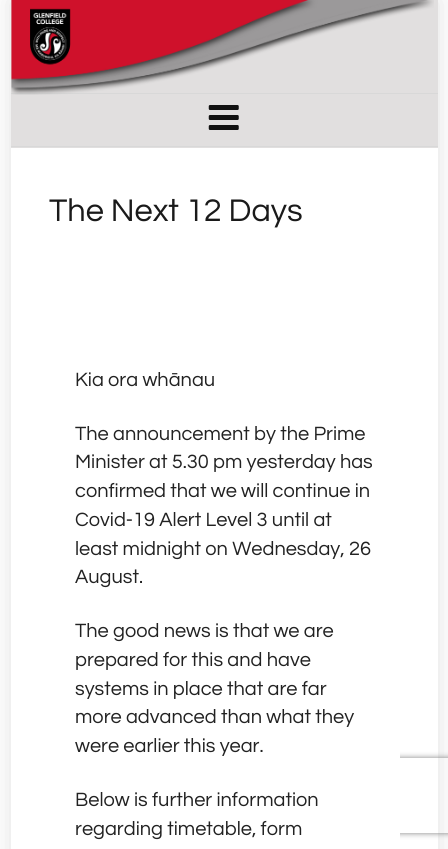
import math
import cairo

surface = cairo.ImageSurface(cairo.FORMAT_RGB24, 448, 849)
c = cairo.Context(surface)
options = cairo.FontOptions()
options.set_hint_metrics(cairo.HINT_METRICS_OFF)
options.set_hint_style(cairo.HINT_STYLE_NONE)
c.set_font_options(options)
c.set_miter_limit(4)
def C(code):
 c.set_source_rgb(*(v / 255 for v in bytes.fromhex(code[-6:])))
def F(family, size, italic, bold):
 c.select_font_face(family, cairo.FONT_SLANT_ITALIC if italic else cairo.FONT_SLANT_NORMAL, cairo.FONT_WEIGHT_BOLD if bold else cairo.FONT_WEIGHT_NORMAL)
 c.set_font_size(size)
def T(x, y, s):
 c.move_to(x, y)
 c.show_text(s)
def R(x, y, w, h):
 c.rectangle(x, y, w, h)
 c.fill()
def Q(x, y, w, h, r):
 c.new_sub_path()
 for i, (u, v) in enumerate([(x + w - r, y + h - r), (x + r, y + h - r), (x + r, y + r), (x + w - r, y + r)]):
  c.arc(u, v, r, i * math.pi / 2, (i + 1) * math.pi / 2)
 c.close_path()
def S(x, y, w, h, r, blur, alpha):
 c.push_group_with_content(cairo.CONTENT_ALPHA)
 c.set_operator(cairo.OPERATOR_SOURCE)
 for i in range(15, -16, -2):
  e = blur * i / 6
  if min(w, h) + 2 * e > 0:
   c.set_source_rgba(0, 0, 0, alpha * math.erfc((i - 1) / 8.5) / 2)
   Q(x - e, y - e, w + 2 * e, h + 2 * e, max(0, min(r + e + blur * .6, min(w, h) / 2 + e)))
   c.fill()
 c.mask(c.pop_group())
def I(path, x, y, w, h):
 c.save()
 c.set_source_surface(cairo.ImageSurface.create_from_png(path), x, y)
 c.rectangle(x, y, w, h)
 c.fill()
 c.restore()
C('ffffff')
c.paint()
C('101010')
S(11,0,427,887,0,12.5,.13)
C('ffffff')
R(11,148,427,701)
C('e1dfdf')
R(11,0,427,148)
C('d8d8d8')
R(11,146,427,1)
R(11,93,427,1)
I('1.png',11,0,423,95)
I('2.png',208,105,31,25)
F('Questrial',32.5,0,0)
C('1a1a1a')
T(49,221,'The Next 12 Days')
c.save()
c.set_fill_rule(cairo.FILL_RULE_EVEN_ODD)
c.new_path()
c.move_to(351,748)
c.line_to(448,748)
c.line_to(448,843)
c.line_to(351,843)
c.close_path()
c.move_to(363.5,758)
c.line_to(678.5,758)
c.curve_to(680,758,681,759,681,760.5)
c.line_to(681,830.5)
c.curve_to(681,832,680,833,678.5,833)
c.line_to(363.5,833)
c.curve_to(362,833,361,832,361,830.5)
c.line_to(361,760.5)
c.curve_to(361,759,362,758,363.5,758)
c.close_path()
c.clip()
C('808080')
S(361,758,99,75,2.5,3,1)
c.restore()
C('ffffff')
Q(49,340,351,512,2.5)
c.fill()
F('Questrial',20,0,0)
C('222222')
T(75,386,'Kia ora whānau')
T(75,440,'The announcement by the Prime')
T(75,468,'Minister at 5.30 pm yesterday has')
T(75,497,'confirmed that we will continue in')
T(75,526,'Covid-19 Alert Level 3 until at')
T(75,555,'least midnight on Wednesday, 26')
T(75,583,'August.')
T(75,637,'The good news is that we are')
T(75,666,'prepared for this and have')
T(75,695,'systems in place that are far')
T(75,723,'more advanced than what they')
T(75,752,'were earlier this year.')
T(75,806,'Below is further information')
T(75,835,'regarding timetable, form')
surface.write_to_png('o.png')
